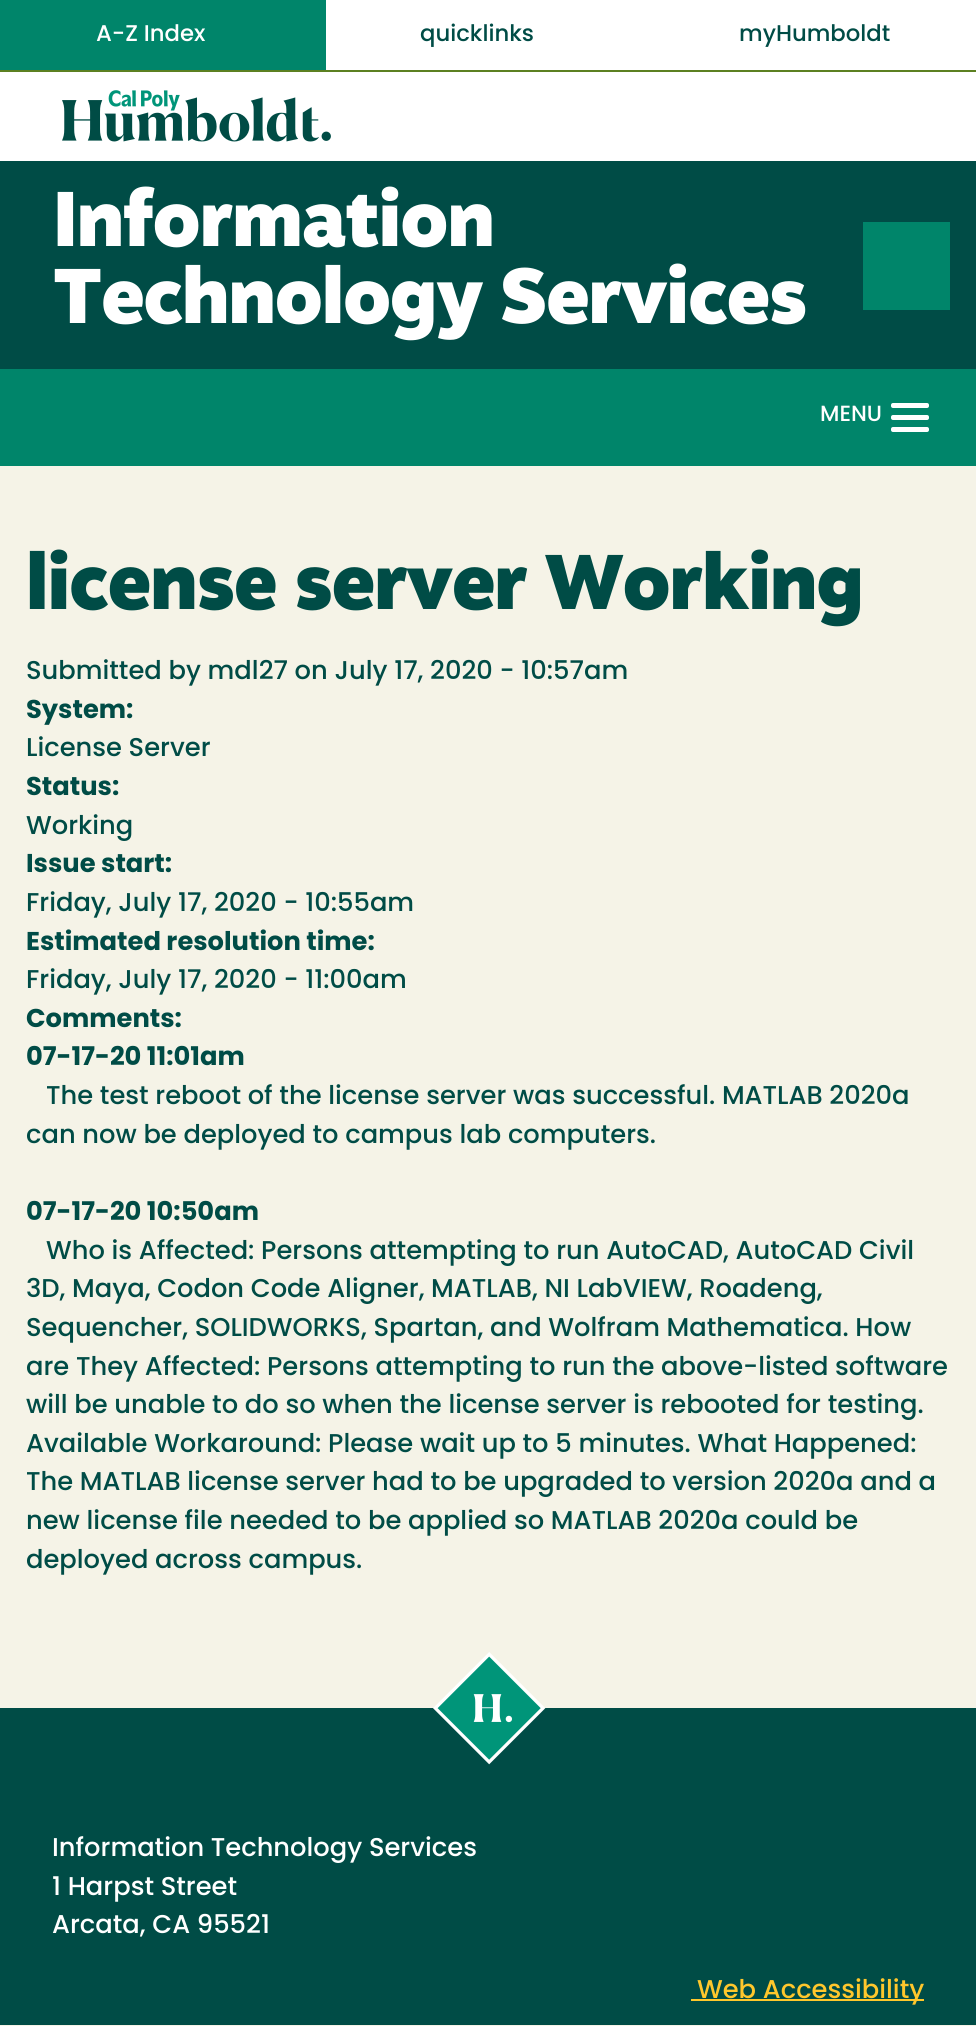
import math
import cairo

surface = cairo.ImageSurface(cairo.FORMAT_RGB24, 976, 2026)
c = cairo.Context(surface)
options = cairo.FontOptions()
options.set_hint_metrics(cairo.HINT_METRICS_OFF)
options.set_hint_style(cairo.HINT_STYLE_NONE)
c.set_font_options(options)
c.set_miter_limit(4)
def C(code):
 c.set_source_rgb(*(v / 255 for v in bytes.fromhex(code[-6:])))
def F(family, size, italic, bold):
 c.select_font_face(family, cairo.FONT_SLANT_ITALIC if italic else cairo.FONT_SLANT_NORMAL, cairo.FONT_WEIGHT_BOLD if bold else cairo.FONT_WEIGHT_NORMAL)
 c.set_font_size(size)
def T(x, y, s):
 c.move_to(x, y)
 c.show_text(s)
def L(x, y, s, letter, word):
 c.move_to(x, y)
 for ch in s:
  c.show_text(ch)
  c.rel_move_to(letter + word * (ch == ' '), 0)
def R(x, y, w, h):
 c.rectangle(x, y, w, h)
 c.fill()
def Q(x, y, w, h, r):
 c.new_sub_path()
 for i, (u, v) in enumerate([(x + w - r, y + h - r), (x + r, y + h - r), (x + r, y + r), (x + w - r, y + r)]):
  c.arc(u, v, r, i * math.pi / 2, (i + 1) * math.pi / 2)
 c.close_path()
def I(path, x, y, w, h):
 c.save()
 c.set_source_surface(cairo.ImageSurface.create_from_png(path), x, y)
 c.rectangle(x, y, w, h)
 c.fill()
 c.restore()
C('f5f3e7')
c.paint()
C('ffffff')
R(0,0,976,161)
C('5c8021')
R(0,70,976,2)
C('00856a')
R(0,0,326,70)
F('Poppins Medium',22.75,0,0)
C('ffffff')
T(96,41,'A-Z Index')
C('004c46')
T(420,41,'quicklinks')
T(739,41,'myHumboldt')
I('1.png',62,90,269,52)
R(0,161,976,208)
F('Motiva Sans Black',77.25,0,0)
C('ffffff')
L(53,246,'Information',-1.25,0)
L(53,323,'Technology Services',-1.25,0)
C('00856a')
R(863,222,87,88)
R(0,369,976,97)
F('Poppins Medium',22,0,0)
C('ffffff')
T(820,421,'MENU')
Q(891,403,38,5,2)
c.fill()
Q(891,415,38,5,2)
c.fill()
Q(891,427,38,5,2)
c.fill()
F('Motiva Sans Black',77.25,0,0)
C('004c46')
L(26,609,'license server Working',-1.25,0)
F('Poppins Medium',25.75,0,0)
T(26,679,'Submitted by mdl27 on July 17, 2020 - 10:57am')
F('Poppins',25.75,0,1)
T(26,718,'System:')
F('Poppins Medium',25.75,0,0)
T(26,756,'License Server')
F('Poppins',25.75,0,1)
T(26,795,'Status:')
F('Poppins Medium',25.75,0,0)
T(26,834,'Working')
F('Poppins',25.75,0,1)
T(26,872,'Issue start:')
F('Poppins Medium',25.75,0,0)
T(26,911,'Friday, July 17, 2020 - 10:55am')
F('Poppins',25.75,0,1)
T(26,950,'Estimated resolution time:')
F('Poppins Medium',25.75,0,0)
T(26,988,'Friday, July 17, 2020 - 11:00am')
F('Poppins',25.75,0,1)
T(26,1027,'Comments:')
T(26,1065,'07-17-20 11:01am')
F('Poppins Medium',25.75,0,0)
T(46,1104,'The test reboot of the license server was successful. MATLAB 2020a')
T(26,1143,'can now be deployed to campus lab computers.')
F('Poppins',25.75,0,1)
T(26,1220,'07-17-20 10:50am')
F('Poppins Medium',25.75,0,0)
T(46,1259,'Who is Affected: Persons attempting to run AutoCAD, AutoCAD Civil')
T(26,1297,'3D, Maya, Codon Code Aligner, MATLAB, NI LabVIEW, Roadeng,')
T(26,1336,'Sequencher, SOLIDWORKS, Spartan, and Wolfram Mathematica. How')
T(26,1375,'are They Affected: Persons attempting to run the above-listed software')
T(26,1413,'will be unable to do so when the license server is rebooted for testing.')
T(26,1452,'Available Workaround: Please wait up to 5 minutes. What Happened:')
T(26,1490,'The MATLAB license server had to be upgraded to version 2020a and a')
T(26,1529,'new license file needed to be applied so MATLAB 2020a could be')
T(26,1568,'deployed across campus.')
R(0,1708,976,317)
I('2.png',433,1652,113,113)
C('ffffff')
T(52,1856,'Information Technology Services')
T(52,1895,'1 Harpst Street')
T(52,1933,'Arcata, CA 95521')
C('ffc72c')
R(691,1999,233,2)
T(697,1998,'Web Accessibility')
surface.write_to_png('o.png')
